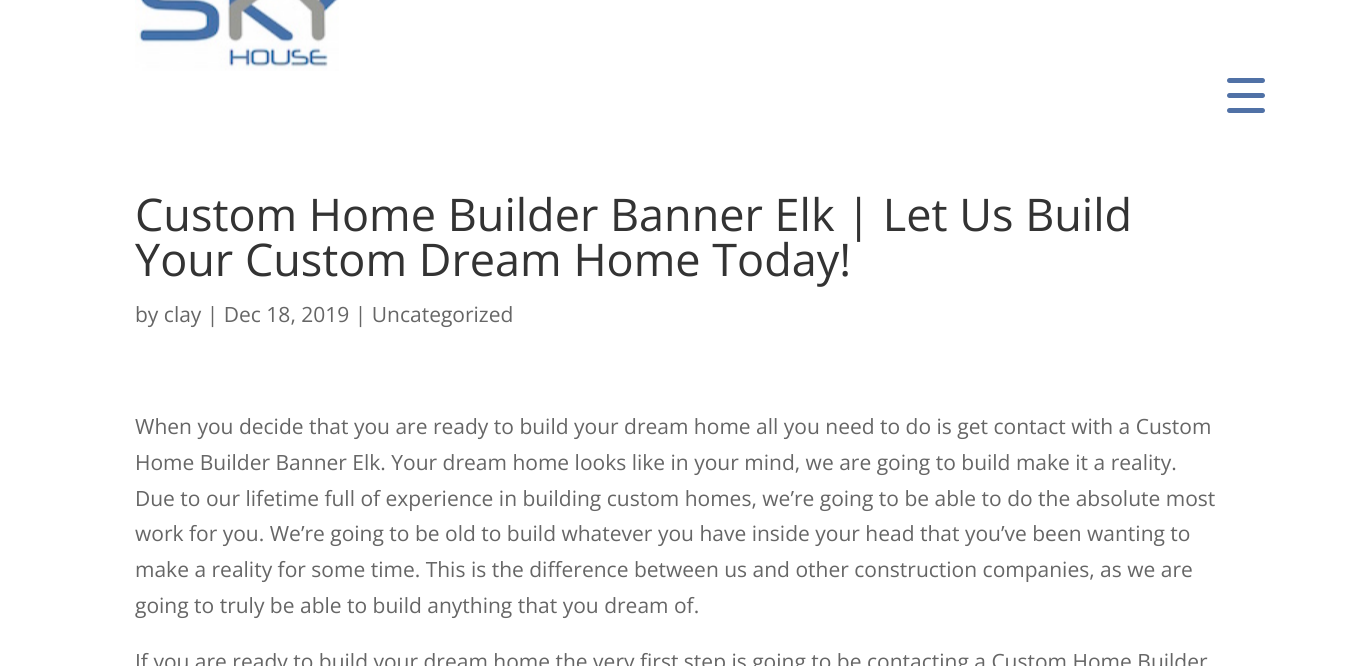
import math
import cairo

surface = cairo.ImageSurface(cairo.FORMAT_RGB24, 1354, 666)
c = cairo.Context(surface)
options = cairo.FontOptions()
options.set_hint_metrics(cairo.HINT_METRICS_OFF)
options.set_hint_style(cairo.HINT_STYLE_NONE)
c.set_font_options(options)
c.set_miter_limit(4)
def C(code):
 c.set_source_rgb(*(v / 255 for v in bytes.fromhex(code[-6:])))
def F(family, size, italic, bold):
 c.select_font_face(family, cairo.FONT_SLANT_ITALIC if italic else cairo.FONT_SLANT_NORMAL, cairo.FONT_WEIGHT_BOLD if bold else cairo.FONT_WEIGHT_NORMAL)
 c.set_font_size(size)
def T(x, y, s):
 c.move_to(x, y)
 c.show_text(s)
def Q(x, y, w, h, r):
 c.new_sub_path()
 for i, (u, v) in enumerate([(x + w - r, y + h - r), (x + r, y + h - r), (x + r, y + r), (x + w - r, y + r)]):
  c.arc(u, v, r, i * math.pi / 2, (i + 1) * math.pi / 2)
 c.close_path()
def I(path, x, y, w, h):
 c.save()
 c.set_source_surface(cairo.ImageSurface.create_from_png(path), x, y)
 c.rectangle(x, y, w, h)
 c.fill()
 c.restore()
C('ffffff')
c.paint()
C('5071a6')
Q(1227,93,38,5,2.5)
c.fill()
Q(1227,78,38,5,2.5)
c.fill()
Q(1227,108,38,5,2.5)
c.fill()
I('1.png',135,0,204,71)
F('Open Sans',45,0,0)
C('333333')
T(135,231,'Custom Home Builder Banner Elk | Let Us Build')
T(135,276,'Your Custom Dream Home Today!')
F('Open Sans',21,0,0)
C('666666')
T(135,322,'by clay | Dec 18, 2019 | Uncategorized')
T(135,434,'When you decide that you are ready to build your dream home all you need to do is get contact with a Custom')
T(135,470,'Home Builder Banner Elk. Your dream home looks like in your mind, we are going to build make it a reality.')
T(135,506,'Due to our lifetime full of experience in building custom homes, we’re going to be able to do the absolute most')
T(135,541,'work for you. We’re going to be old to build whatever you have inside your head that you’ve been wanting to')
T(135,577,'make a reality for some time. This is the difference between us and other construction companies, as we are')
T(135,613,'going to truly be able to build anything that you dream of.')
T(135,669,'If you are ready to build your dream home the very first step is going to be contacting a Custom Home Builder')
surface.write_to_png('o.png')
